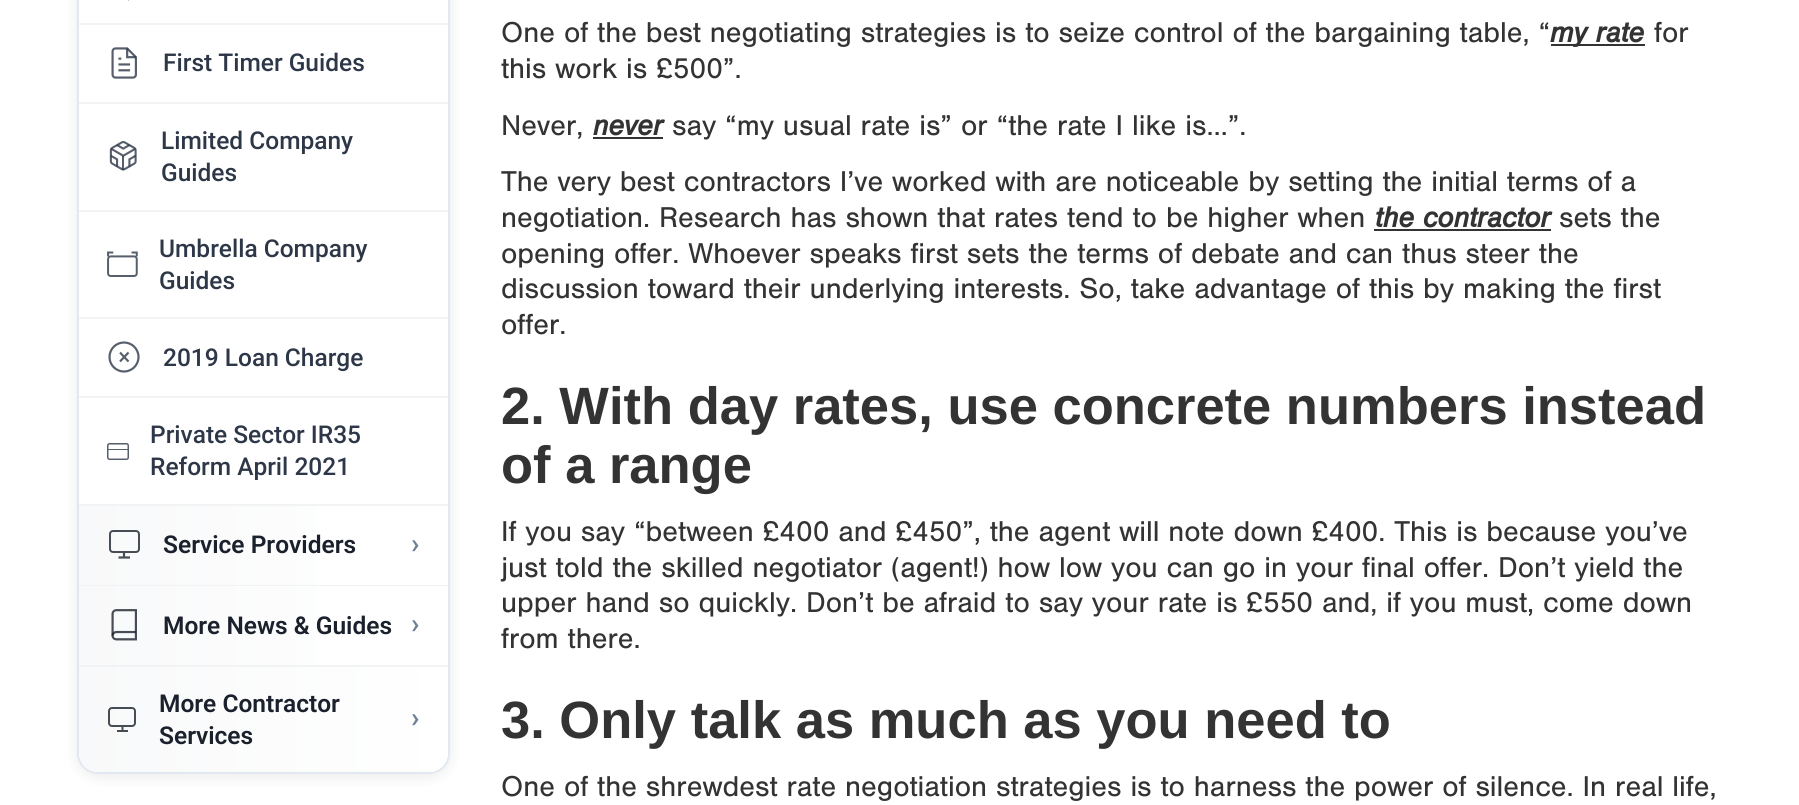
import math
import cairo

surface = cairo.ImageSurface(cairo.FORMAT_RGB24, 1799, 805)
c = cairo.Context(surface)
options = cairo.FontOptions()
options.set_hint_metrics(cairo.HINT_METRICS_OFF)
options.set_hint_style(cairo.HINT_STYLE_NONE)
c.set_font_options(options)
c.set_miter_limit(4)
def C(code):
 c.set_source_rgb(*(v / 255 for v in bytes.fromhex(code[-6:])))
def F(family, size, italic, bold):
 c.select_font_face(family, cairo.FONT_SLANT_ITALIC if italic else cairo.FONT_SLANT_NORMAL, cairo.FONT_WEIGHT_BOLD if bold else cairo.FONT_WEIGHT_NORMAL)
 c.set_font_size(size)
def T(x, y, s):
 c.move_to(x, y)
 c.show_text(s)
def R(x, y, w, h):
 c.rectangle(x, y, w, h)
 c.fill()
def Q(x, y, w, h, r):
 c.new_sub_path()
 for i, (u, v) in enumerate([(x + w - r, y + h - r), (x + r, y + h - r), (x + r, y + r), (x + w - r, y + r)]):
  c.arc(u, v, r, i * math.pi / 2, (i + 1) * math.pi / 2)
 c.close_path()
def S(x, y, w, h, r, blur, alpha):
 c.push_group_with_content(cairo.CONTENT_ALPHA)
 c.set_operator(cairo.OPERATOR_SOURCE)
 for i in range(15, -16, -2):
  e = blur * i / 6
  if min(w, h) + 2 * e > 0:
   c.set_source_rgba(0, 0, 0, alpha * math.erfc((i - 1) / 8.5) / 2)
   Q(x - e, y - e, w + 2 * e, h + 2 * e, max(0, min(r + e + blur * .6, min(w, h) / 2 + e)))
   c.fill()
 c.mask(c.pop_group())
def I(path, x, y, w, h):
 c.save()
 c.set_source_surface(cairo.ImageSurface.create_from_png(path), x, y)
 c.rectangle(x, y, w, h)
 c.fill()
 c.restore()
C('ffffff')
c.paint()
C('000000')
S(77,-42,373,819,21,7,.08)
C('ffffff')
Q(78,-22,371,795,20)
c.fill_preserve()
C('e2e8f0')
c.stroke()
C('f1f3f4')
R(79,23,369,2)
c.new_path()
c.move_to(139,-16)
c.line_to(133,-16)
c.line_to(128.5,-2.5)
c.line_to(120,-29)
c.line_to(115.5,-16)
c.line_to(109.5,-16)
C('575f6d')
c.set_line_width(2.2)
c.stroke()
C('f1f3f4')
R(79,102,369,2)
I('1.png',111,47,26,32)
F('Roboto Medium',24.5,0,0)
C('2d3748')
T(163,71,'First Timer Guides')
C('f1f3f4')
R(79,210,369,2)
I('2.png',109,141,28,30)
C('2d3748')
T(161,149,'Limited Company')
T(161,181,'Guides')
C('f1f3f4')
R(79,317,369,2)
I('3.png',107,251,31,26)
C('2d3748')
T(159,257,'Umbrella Company')
T(159,289,'Guides')
C('f1f3f4')
R(79,396,369,2)
c.new_path()
c.arc(124,357,14.5,0,2 * math.pi)
C('575f6d')
c.stroke()
c.new_path()
c.move_to(128.5,352.5)
c.line_to(120,361.5)
c.move_to(120,352.5)
c.line_to(128.5,361.5)
c.stroke()
C('2d3748')
T(163,366,'2019 Loan Charge')
C('f1f3f4')
R(79,504,369,2)
C('2d3748')
T(150,443,'Private Sector IR35')
Q(107.75,443.75,20.5,15.5,1.75)
C('575f6d')
c.set_line_width(1.5)
c.stroke()
R(108,449,21,1)
C('2d3748')
T(150,475,'Reform April 2021')
C('f1f3f4')
R(79,585,369,1)
gradient = cairo.LinearGradient(79,545,448,545)
gradient.add_color_stop_rgba(0,0.973,0.976,0.98,1)
gradient.add_color_stop_rgba(1,1,1,1,1)
c.set_source(gradient)
R(79,506,237,79)
Q(110,531,29,21,3)
C('474c55')
c.set_line_width(2)
c.stroke()
c.new_path()
c.move_to(118.5,557.5)
c.line_to(130,557.5)
c.move_to(124,551.5)
c.line_to(124,557.5)
c.set_line_width(2.2)
c.stroke()
F('Roboto SemiBold',24.5,0,0)
C('1a202c')
T(163,553,'Service Providers')
F('Roboto SemiBold',28,0,0)
C('718096')
T(411,553,'›')
C('f1f3f4')
R(79,665,369,2)
gradient = cairo.LinearGradient(79,626,448,626)
gradient.add_color_stop_rgba(0,0.973,0.976,0.98,1)
gradient.add_color_stop_rgba(1,1,1,1,1)
c.set_source(gradient)
R(79,586,237,79)
I('4.png',111,609,26,32)
F('Roboto SemiBold',24.5,0,0)
C('1a202c')
T(163,634,'More News & Guides')
F('Roboto SemiBold',28,0,0)
C('718096')
T(411,633,'›')
gradient = cairo.LinearGradient(79,719,448,719)
gradient.add_color_stop_rgba(0,0.973,0.976,0.98,1)
gradient.add_color_stop_rgba(1,1,1,1,1)
c.set_source(gradient)
c.new_path()
c.move_to(79,667)
c.line_to(448,667)
c.line_to(448,753)
c.curve_to(448,763.5,439.5,772,429,772)
c.line_to(98,772)
c.curve_to(87.5,772,79,763.5,79,753)
c.close_path()
c.fill()
F('Roboto SemiBold',24.5,0,0)
C('1a202c')
T(159,712,'More Contractor')
Q(109,708,26,18,3)
C('474c55')
c.set_line_width(2)
c.stroke()
R(117,730,11,2)
c.new_path()
c.move_to(122.5,726)
c.line_to(122.5,731)
c.stroke()
F('Roboto SemiBold',28,0,0)
C('718096')
T(411,727,'›')
F('Roboto SemiBold',24.5,0,0)
C('1a202c')
T(159,744,'Services')
F('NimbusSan',29.75,0,0)
C('333333')
T(501,42,'One of the best negotiating strategies is to seize control of the bargaining table, “')
R(1551,44,94,2)
F('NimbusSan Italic',29.75,1,1)
T(1550,42,'my rate')
F('NimbusSan',29.75,0,0)
T(1654,42,'for')
T(501,78,'this work is £500”.')
T(501,135,'Never,')
F('NimbusSan Italic',29.75,1,1)
T(593,135,'never')
R(593,137,70,2)
F('NimbusSan',29.75,0,0)
T(672,135,'say “my usual rate is” or “the rate I like is…”.')
T(501,191,'The very best contractors I’ve worked with are noticeable by setting the initial terms of a')
T(501,227,'negotiation. Research has shown that rates tend to be higher when')
F('NimbusSan Italic',29.75,1,1)
T(1375,227,'the contractor')
R(1374,229,177,2)
F('NimbusSan',29.75,0,0)
T(1559,227,'sets the')
T(501,263,'opening offer. Whoever speaks first sets the terms of debate and can thus steer the')
T(501,298,'discussion toward their underlying interests. So, take advantage of this by making the first')
T(501,334,'offer.')
F('Liberation Sans',52.5,0,1)
T(501,424,'2. With day rates, use concrete numbers instead')
T(501,483,'of a range')
F('NimbusSan',29.75,0,0)
T(501,541,'If you say “between £400 and £450”, the agent will note down £400. This is because you’ve')
T(501,577,'just told the skilled negotiator (agent!) how low you can go in your final offer. Don’t yield the')
T(501,612,'upper hand so quickly. Don’t be afraid to say your rate is £550 and, if you must, come down')
T(501,648,'from there.')
F('Liberation Sans',52.5,0,1)
T(501,738,'3. Only talk as much as you need to')
F('NimbusSan',29.75,0,0)
T(501,796,'One of the shrewdest rate negotiation strategies is to harness the power of silence. In real life,')
surface.write_to_png('o.png')
